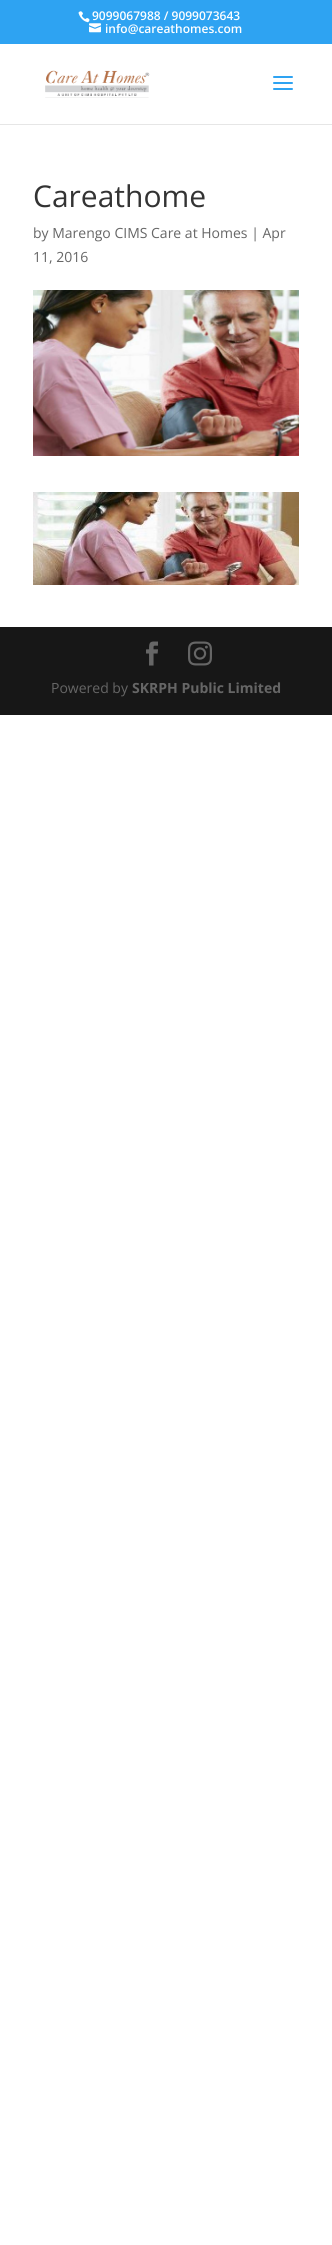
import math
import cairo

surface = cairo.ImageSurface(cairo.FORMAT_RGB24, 332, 2245)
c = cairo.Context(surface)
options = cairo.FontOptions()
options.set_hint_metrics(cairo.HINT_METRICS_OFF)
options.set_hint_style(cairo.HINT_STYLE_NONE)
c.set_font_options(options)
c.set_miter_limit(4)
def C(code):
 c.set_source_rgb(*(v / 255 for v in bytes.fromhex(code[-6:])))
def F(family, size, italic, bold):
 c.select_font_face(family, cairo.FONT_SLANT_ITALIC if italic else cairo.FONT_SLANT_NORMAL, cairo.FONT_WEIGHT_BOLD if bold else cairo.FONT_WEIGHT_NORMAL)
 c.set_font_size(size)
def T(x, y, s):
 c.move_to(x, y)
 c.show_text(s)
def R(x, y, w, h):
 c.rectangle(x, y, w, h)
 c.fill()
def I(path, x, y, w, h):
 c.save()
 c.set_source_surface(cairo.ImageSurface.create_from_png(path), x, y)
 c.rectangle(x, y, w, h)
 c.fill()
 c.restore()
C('ffffff')
c.paint()
C('2ea3f2')
R(0,0,332,44)
I('1.png',78,11,12,12)
F('Open Sans SemiBold',12,0,0)
C('ffffff')
T(92,20,'9099067988 / 9099073643')
I('2.png',89,23,12,10)
T(105,33,'info@careathomes.com')
C('e6e6e6')
R(0,124,332,1)
I('3.png',45,70,105,28)
I('4.png',273,76,20,14)
F('Open Sans',30,0,0)
C('333333')
T(33,207,'Careathome')
F('Open Sans',14,0,0)
C('666666')
T(33,238,'by Marengo CIMS Care at Homes | Apr')
T(33,262,'11, 2016')
I('5.png',33,290,266,166)
I('6.png',33,492,266,93)
C('171717')
R(0,627,332,88)
I('7.png',146,641,12,25)
I('8.png',188,641,24,25)
C('666666')
T(51,693,'Powered by')
F('Open Sans',14,0,1)
T(132,693,'SKRPH Public Limited')
surface.write_to_png('o.png')
